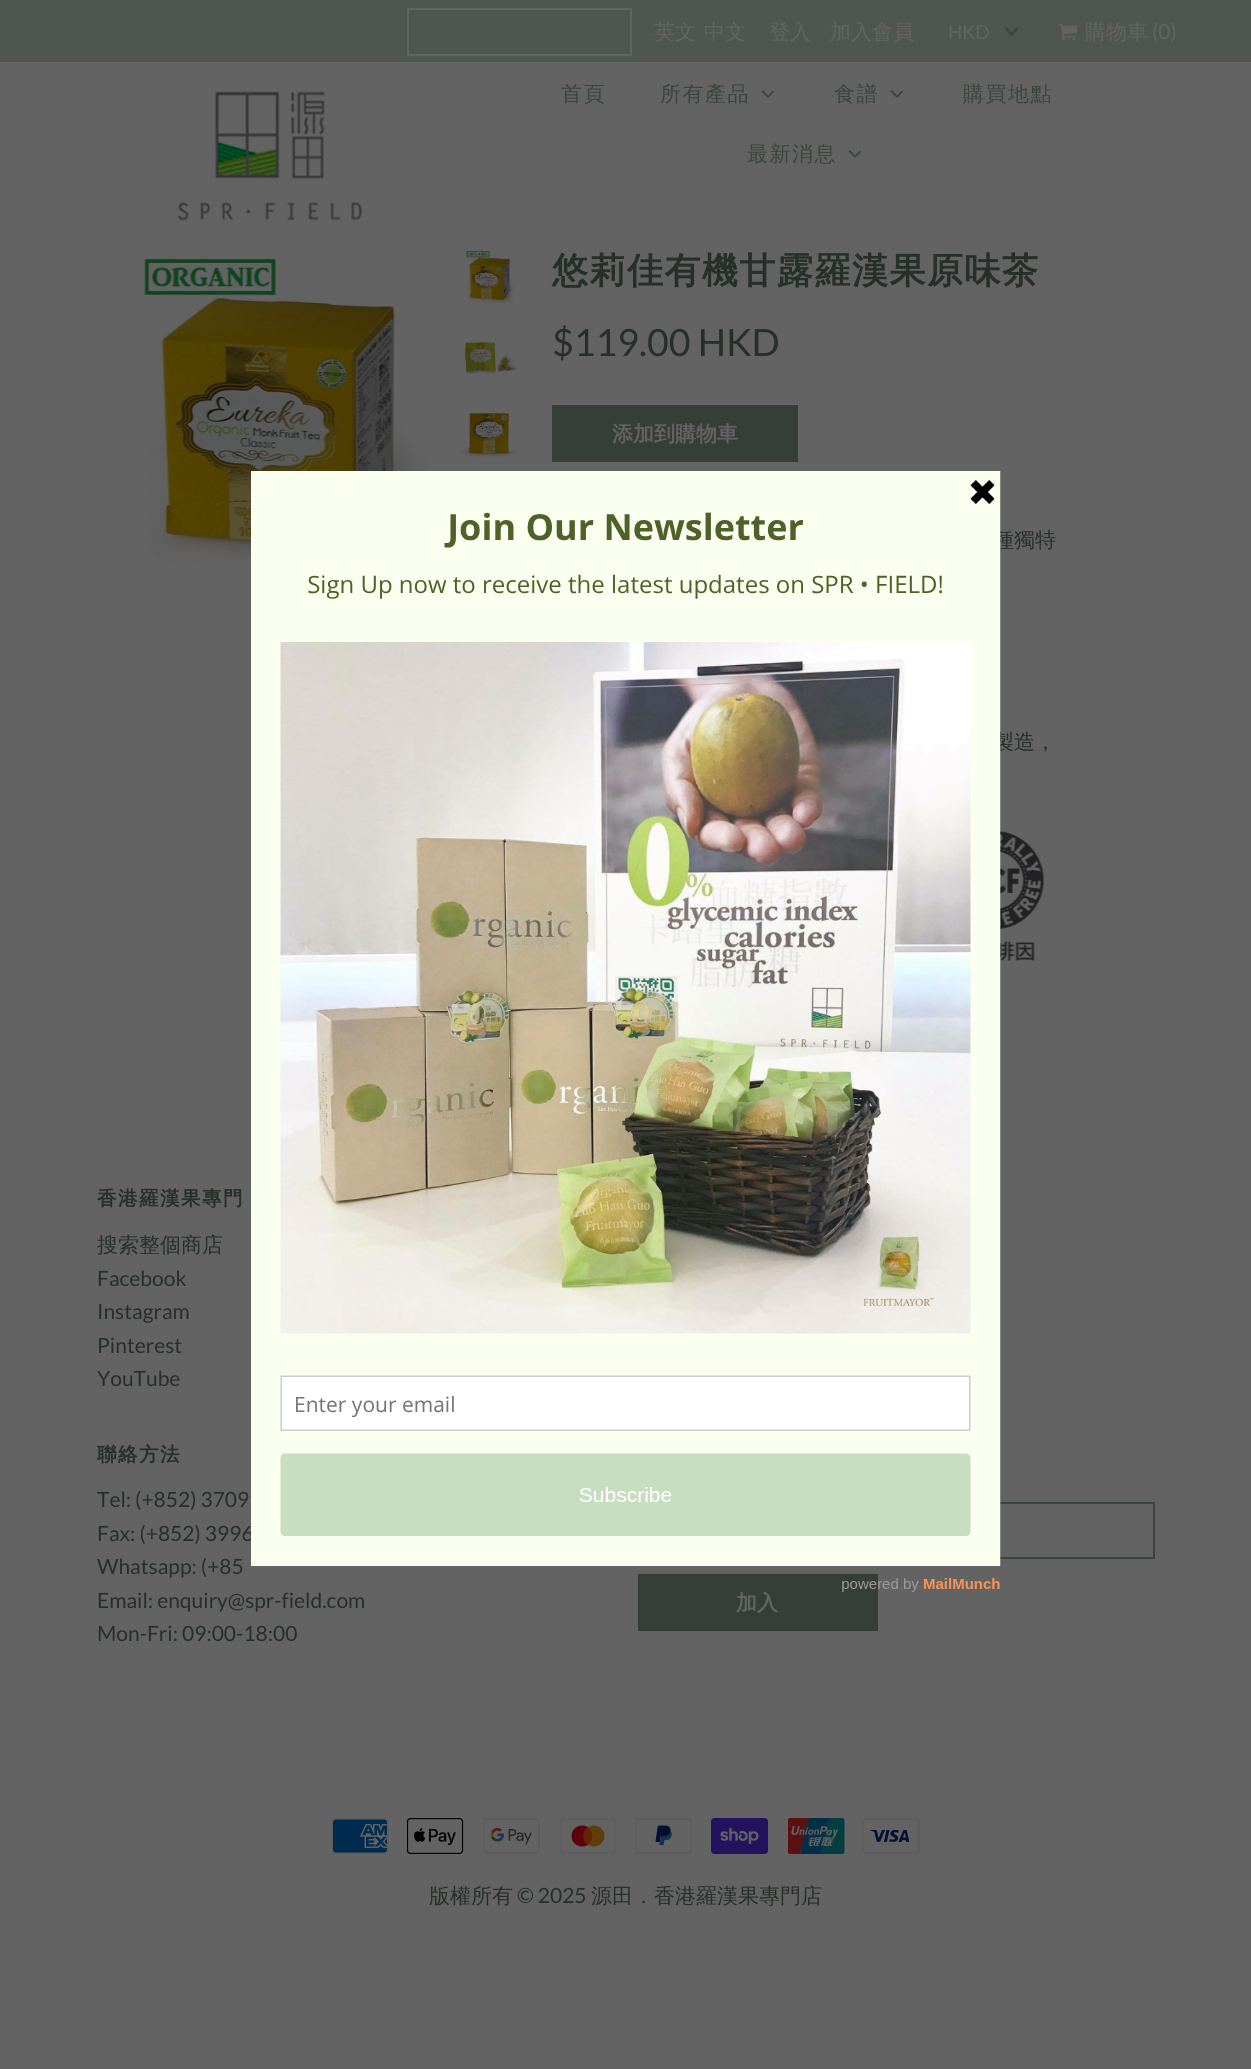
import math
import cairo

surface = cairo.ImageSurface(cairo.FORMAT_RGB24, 1251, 2069)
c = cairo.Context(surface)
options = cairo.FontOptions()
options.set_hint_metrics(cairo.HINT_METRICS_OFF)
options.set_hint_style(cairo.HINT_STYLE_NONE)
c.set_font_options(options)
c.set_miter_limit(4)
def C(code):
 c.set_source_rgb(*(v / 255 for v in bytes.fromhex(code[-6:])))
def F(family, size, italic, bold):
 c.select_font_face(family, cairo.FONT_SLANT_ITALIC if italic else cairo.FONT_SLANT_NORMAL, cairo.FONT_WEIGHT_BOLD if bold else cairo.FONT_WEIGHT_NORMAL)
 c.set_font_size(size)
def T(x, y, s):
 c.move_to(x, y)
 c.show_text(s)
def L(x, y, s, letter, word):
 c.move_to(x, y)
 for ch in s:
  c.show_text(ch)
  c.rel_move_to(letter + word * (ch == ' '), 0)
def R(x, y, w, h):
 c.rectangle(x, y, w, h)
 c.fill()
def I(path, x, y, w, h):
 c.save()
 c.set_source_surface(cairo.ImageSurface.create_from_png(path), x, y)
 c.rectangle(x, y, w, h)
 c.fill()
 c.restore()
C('636363')
c.paint()
C('4f5651')
R(0,0,1251,62)
c.rectangle(408,9,223,46)
C('636363')
c.stroke()
F('WenQuanYi Zen Hei Medium',21,0,0)
T(654,39,'英文')
T(704,39,'中文')
T(769,39,'登入')
T(830,39,'加入會員')
I('1.png',1004,26,15,11)
F('Lato',19,0,0)
T(948,39,'HKD')
I('2.png',1057,24,20,17)
F('WenQuanYi Zen Hei Medium',21,0,0)
T(1085,39,'購物車')
F('Lato',21,0,0)
T(1152,39,'(0)')
I('3.png',177,91,185,131)
F('WenQuanYi Zen Hei Medium',21,0,0)
C('3b453e')
L(561,101,'首頁',1.5,0)
L(660,101,'所有產品',1.5,0)
c.new_path()
c.move_to(773,90.5)
c.line_to(774,92)
c.line_to(768.5,97.5)
c.line_to(767,96.5)
c.close_path()
c.fill()
c.new_path()
c.move_to(763,90)
c.line_to(769,96.5)
c.line_to(767.5,97.5)
c.line_to(761.5,91.5)
c.close_path()
c.fill()
L(834,101,'食譜',1.5,0)
c.new_path()
c.move_to(902,90.5)
c.line_to(903,92)
c.line_to(897.5,97.5)
c.line_to(896,96.5)
c.close_path()
c.fill()
c.new_path()
c.move_to(892,90)
c.line_to(898,96.5)
c.line_to(896.5,97.5)
c.line_to(890.5,91.5)
c.close_path()
c.fill()
L(963,101,'購買地點',1.5,0)
L(747,161,'最新消息',1.5,0)
c.new_path()
c.move_to(860,150.5)
c.line_to(861,152)
c.line_to(855.5,157.5)
c.line_to(854,156.5)
c.close_path()
c.fill()
c.new_path()
c.move_to(850,150)
c.line_to(856,156.5)
c.line_to(854.5,157.5)
c.line_to(848.5,151.5)
c.close_path()
c.fill()
I('4.png',144,258,286,322)
I('5.png',466,250,50,55)
I('6.png',465,342,53,33)
I('7.png',460,412,59,46)
F('WenQuanYi Zen Hei',36,0,1)
C('272f2a')
L(552,283,'悠莉佳有機甘露羅漢果原味茶',1.5,0)
F('Lato',37.5,0,0)
T(552,356,'$119.00 HKD')
C('353f38')
R(552,405,246,57)
F('WenQuanYi Zen Hei',21,0,1)
C('636363')
T(612,441,'添加到購物車')
F('WenQuanYi Zen Hei Medium',21,0,0)
C('272f2a')
T(993,547,'種獨特')
T(993,749,'製造，')
I('8.png',1000,831,44,130)
F('WenQuanYi Zen Hei',19.5,0,1)
L(97,1205,'香港羅漢果專門',1.5,0)
F('WenQuanYi Zen Hei Medium',21,0,0)
T(97,1252,'搜索整個商店')
F('Lato',21,0,0)
T(97,1286,'Facebook')
T(97,1319,'Instagram')
T(97,1353,'Pinterest')
T(97,1386,'YouTube')
F('WenQuanYi Zen Hei',19.5,0,1)
L(97,1461,'聯絡方法',1.5,0)
F('Lato',21,0,0)
T(97,1507,'Tel: (+852) 3709')
T(97,1541,'Fax: (+852) 3996')
T(97,1574,'Whatsapp: (+85')
T(97,1608,'Email: enquiry@spr-field.com')
T(97,1641,'Mon-Fri: 09:00-18:00')
c.rectangle(639,1503,515,55)
C('3b453e')
c.stroke()
C('353f38')
R(638,1574,240,57)
F('WenQuanYi Zen Hei',21,0,1)
C('636363')
T(736,1610,'加入')
I('9.png',332,1818,57,36)
I('10.png',407,1818,57,36)
I('11.png',483,1818,57,36)
I('12.png',560,1818,57,36)
I('13.png',635,1818,57,36)
I('14.png',711,1818,57,36)
I('15.png',788,1818,57,36)
I('16.png',863,1818,57,36)
F('WenQuanYi Zen Hei Medium',21,0,0)
C('272f2a')
T(429,1903,'版權所有')
F('Lato',21,0,0)
T(517,1903,'© 2025')
F('WenQuanYi Zen Hei Medium',21,0,0)
T(591,1903,'源田．香港羅漢果專門店')
I('17.png',251,471,750,1121)
surface.write_to_png('o.png')
